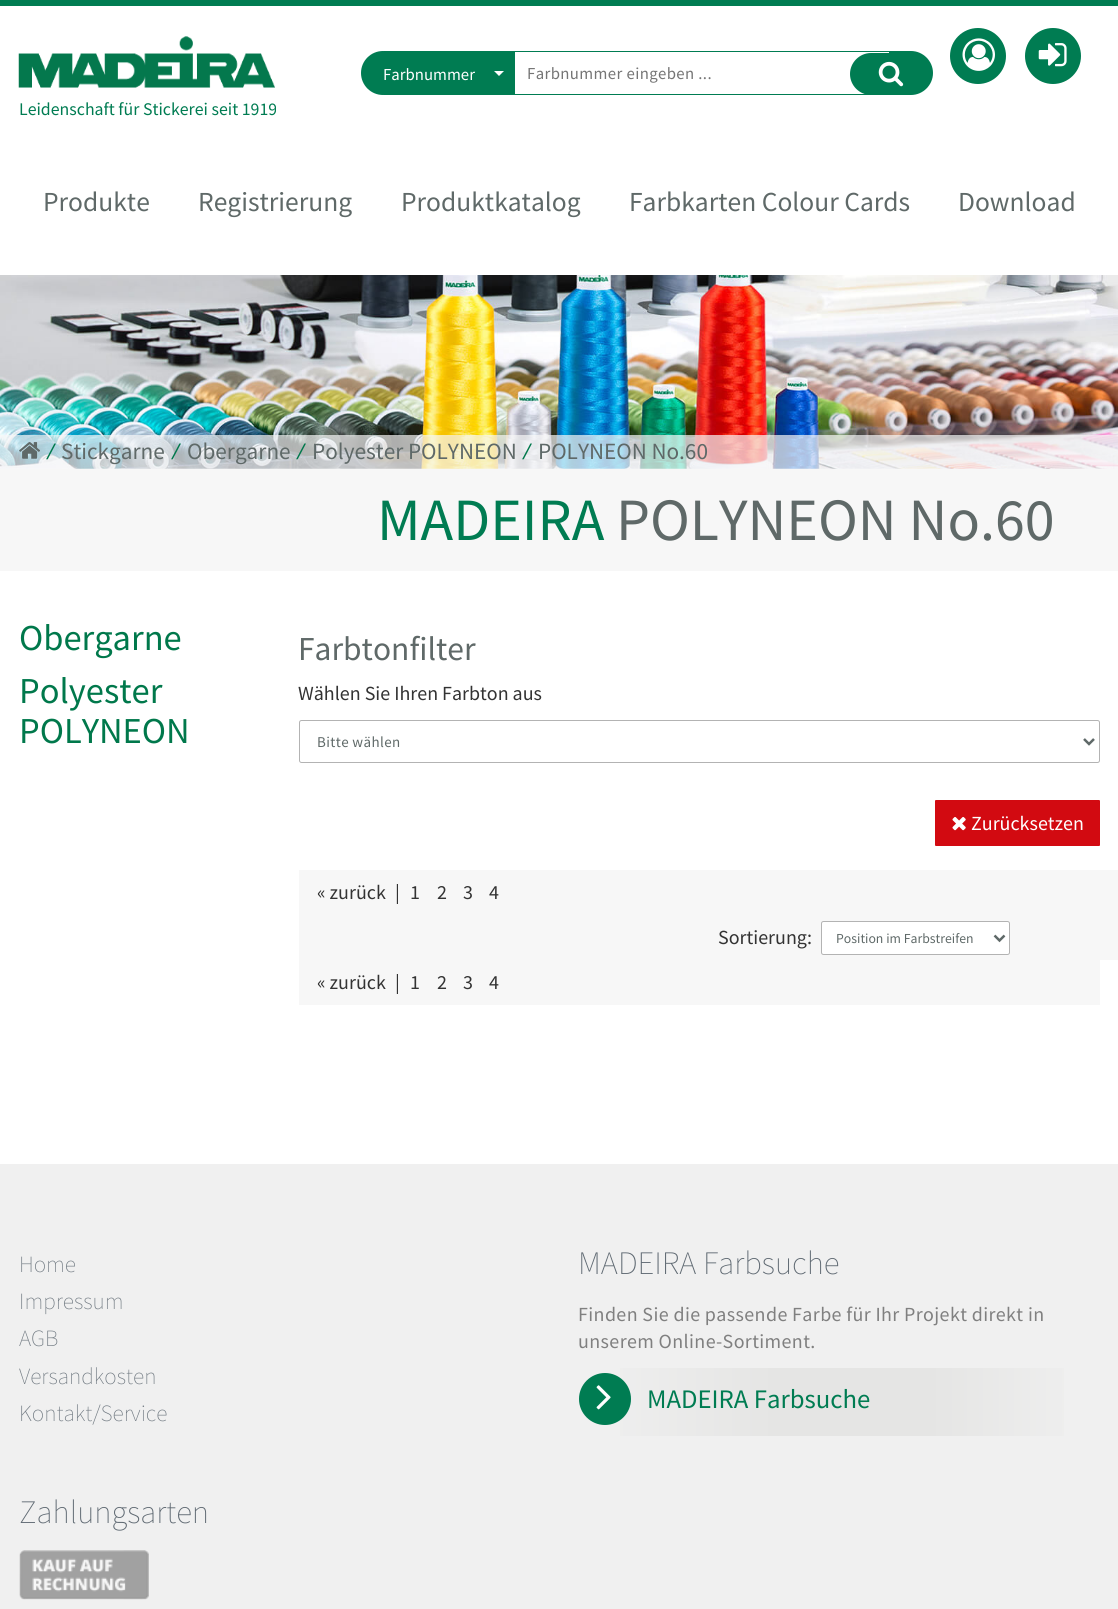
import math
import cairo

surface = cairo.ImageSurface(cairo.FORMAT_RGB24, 1118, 1609)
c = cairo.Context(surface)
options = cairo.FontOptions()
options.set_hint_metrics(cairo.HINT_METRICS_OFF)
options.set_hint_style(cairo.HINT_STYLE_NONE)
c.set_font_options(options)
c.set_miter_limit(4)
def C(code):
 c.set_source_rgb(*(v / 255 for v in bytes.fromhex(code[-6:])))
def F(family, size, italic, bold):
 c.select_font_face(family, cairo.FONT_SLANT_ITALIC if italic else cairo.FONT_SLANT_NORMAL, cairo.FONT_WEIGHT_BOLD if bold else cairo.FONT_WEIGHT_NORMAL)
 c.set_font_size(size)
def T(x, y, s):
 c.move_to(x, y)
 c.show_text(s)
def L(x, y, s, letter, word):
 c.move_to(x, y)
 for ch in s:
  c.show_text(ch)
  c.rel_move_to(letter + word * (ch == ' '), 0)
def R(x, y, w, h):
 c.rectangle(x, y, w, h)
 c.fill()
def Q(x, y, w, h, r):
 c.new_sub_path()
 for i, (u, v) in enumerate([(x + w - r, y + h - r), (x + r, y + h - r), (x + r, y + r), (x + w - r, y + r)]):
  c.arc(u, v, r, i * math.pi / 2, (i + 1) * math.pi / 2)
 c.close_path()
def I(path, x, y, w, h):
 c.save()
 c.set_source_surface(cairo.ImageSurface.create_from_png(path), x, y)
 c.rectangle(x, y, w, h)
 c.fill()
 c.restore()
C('ffffff')
c.paint()
C('007c52')
R(0,0,1118,6)
c.arc(383,73,22,0,2 * math.pi)
c.fill()
R(384,51,131,44)
F('Source Sans Pro',16.75,0,0)
C('ffffff')
T(383,80,'Farbnummer')
c.new_path()
c.move_to(494,71)
c.line_to(504,71)
c.line_to(499,76)
c.close_path()
c.fill()
C('007c52')
R(515,51,374,1)
R(515,94,356,1)
C('757575')
L(527,79,'Farbnummer eingeben ...',.38,0)
C('007c52')
c.new_path()
c.move_to(871,53)
c.line_to(893,53)
c.line_to(893,95)
c.line_to(871,95)
c.curve_to(859.5,95,850,85.5,850,74)
c.curve_to(850,62.5,859.5,53,871,53)
c.close_path()
c.fill()
c.new_path()
c.move_to(889,51)
c.line_to(911,51)
c.curve_to(923,51,933,61,933,73)
c.curve_to(933,85,923,95,911,95)
c.line_to(889,95)
c.close_path()
c.fill()
I('1.png',878,61,26,26)
c.arc(978,56,28,0,2 * math.pi)
c.fill()
I('2.png',962,38,33,33)
c.arc(1053,56,28,0,2 * math.pi)
c.fill()
I('3.png',1038,43,29,24)
I('4.png',18,36,257,52)
F('Source Sans Pro',17.8,0,0)
T(19,115,'Leidenschaft für Stickerei seit 1919')
F('Source Sans Pro',27.5,0,0)
C('5f6968')
T(43,211,'Produkte')
T(198,211,'Registrierung')
T(401,211,'Produktkatalog')
T(629,211,'Farbkarten Colour Cards')
T(958,211,'Download')
I('5.png',0,275,1118,194)
c.set_source_rgba(0.969,0.969,0.969,0.7)
R(0,435,1118,34)
I('6.png',19,442,21,17)
F('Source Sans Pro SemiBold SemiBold',23.25,0,0)
C('00784b')
T(50,459,'⁄')
F('Source Sans Pro',23.25,0,0)
C('5f6968')
T(61,459,'Stickgarne')
F('Source Sans Pro SemiBold SemiBold',23.25,0,0)
C('00784b')
T(175,459,'⁄')
F('Source Sans Pro',23.25,0,0)
C('5f6968')
T(187,459,'Obergarne')
F('Source Sans Pro SemiBold SemiBold',23.25,0,0)
C('00784b')
T(300,459,'⁄')
F('Source Sans Pro',23.25,0,0)
C('5f6968')
T(312,459,'Polyester POLYNEON')
F('Source Sans Pro SemiBold SemiBold',23.25,0,0)
C('00784b')
T(526,459,'⁄')
F('Source Sans Pro',23.25,0,0)
C('5f6968')
T(538,459,'POLYNEON No.60')
C('f7f7f7')
R(0,469,1118,102)
F('Source Sans Pro',60,0,0)
C('007c52')
T(377,540,'MADEIRA')
C('5f6968')
T(616,540,'POLYNEON No.60')
F('Source Sans Pro',36.5,0,0)
C('00784b')
T(19,650,'Obergarne')
T(19,703,'Polyester')
T(19,743,'POLYNEON')
F('Source Sans Pro',33.5,0,0)
C('5f6968')
T(298,660,'Farbtonfilter')
F('Source Sans Pro',20,0,0)
C('333333')
T(298,700,'Wählen Sie Ihren Farbton aus')
Q(299.5,720.5,800,42,2)
C('b3b3b3')
c.set_line_width(1)
c.stroke()
c.new_path()
c.move_to(1084,739)
c.line_to(1089,744)
c.line_to(1094,739)
C('5f6968')
c.set_line_width(2.5)
c.stroke()
F('Source Sans Pro',15,0,0)
L(317,747,'Bitte wählen',.38,0)
C('d20a11')
Q(935.5,800.5,164,45,.5)
c.fill_preserve()
c.set_line_width(1)
c.stroke()
I('7.png',952,817,14,14)
F('Source Sans Pro',20,0,0)
C('ffffff')
T(971,830,'Zurücksetzen')
C('f7f7f7')
R(299,870,819,90)
C('333333')
T(317,899,'« zurück')
T(395,899,'|')
T(410,899,'1')
T(437,899,'2')
T(463,899,'3')
T(489,899,'4')
T(718,944,'Sortierung:')
C('ffffff')
Q(821.5,921.5,188,33,2)
c.fill_preserve()
C('b3b3b3')
c.stroke()
c.new_path()
c.move_to(994.5,935.5)
c.line_to(999.5,940.5)
c.line_to(1004.5,935.5)
C('5f6968')
c.set_line_width(2.5)
c.stroke()
F('Source Sans Pro',13.75,0,0)
T(836,943,'Position im Farbstreifen')
C('f7f7f7')
R(299,960,801,45)
F('Source Sans Pro',20,0,0)
C('333333')
T(317,989,'« zurück')
T(395,989,'|')
T(410,989,'1')
T(437,989,'2')
T(463,989,'3')
T(489,989,'4')
C('f0f0f0')
R(0,1164,1118,445)
F('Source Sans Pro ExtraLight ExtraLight',23.25,0,0)
C('717a82')
T(19,1272,'Home')
T(19,1309,'Impressum')
T(19,1346,'AGB')
T(19,1384,'Versandkosten')
T(19,1421,'Kontakt/Service')
F('Source Sans Pro ExtraLight ExtraLight',32.75,0,0)
C('5f6972')
T(19,1523,'Zahlungsarten')
I('8.png',19,1550,130,50)
T(578,1274,'MADEIRA Farbsuche')
F('Source Sans Pro',20,0,0)
C('808080')
L(578,1321,'Finden Sie die passende Farbe für Ihr Projekt direkt in',.38,0)
L(578,1348,'unserem Online-Sortiment.',.38,0)
gradient = cairo.LinearGradient(579,1402,1100,1402)
gradient.add_color_stop_rgba(0,0.941,0.941,0.941,1)
gradient.add_color_stop_rgba(.38,0.898,0.898,0.894,1)
gradient.add_color_stop_rgba(.67,0.898,0.898,0.894,1)
gradient.add_color_stop_rgba(1,0.941,0.941,0.941,1)
c.set_source(gradient)
R(620,1368,444,68)
C('007c52')
c.new_path()
c.arc(605,1399,26,0,2 * math.pi)
c.fill()
I('9.png',596,1385,15,25)
F('Source Sans Pro',26.75,0,0)
T(647,1408,'MADEIRA Farbsuche')
surface.write_to_png('o.png')
